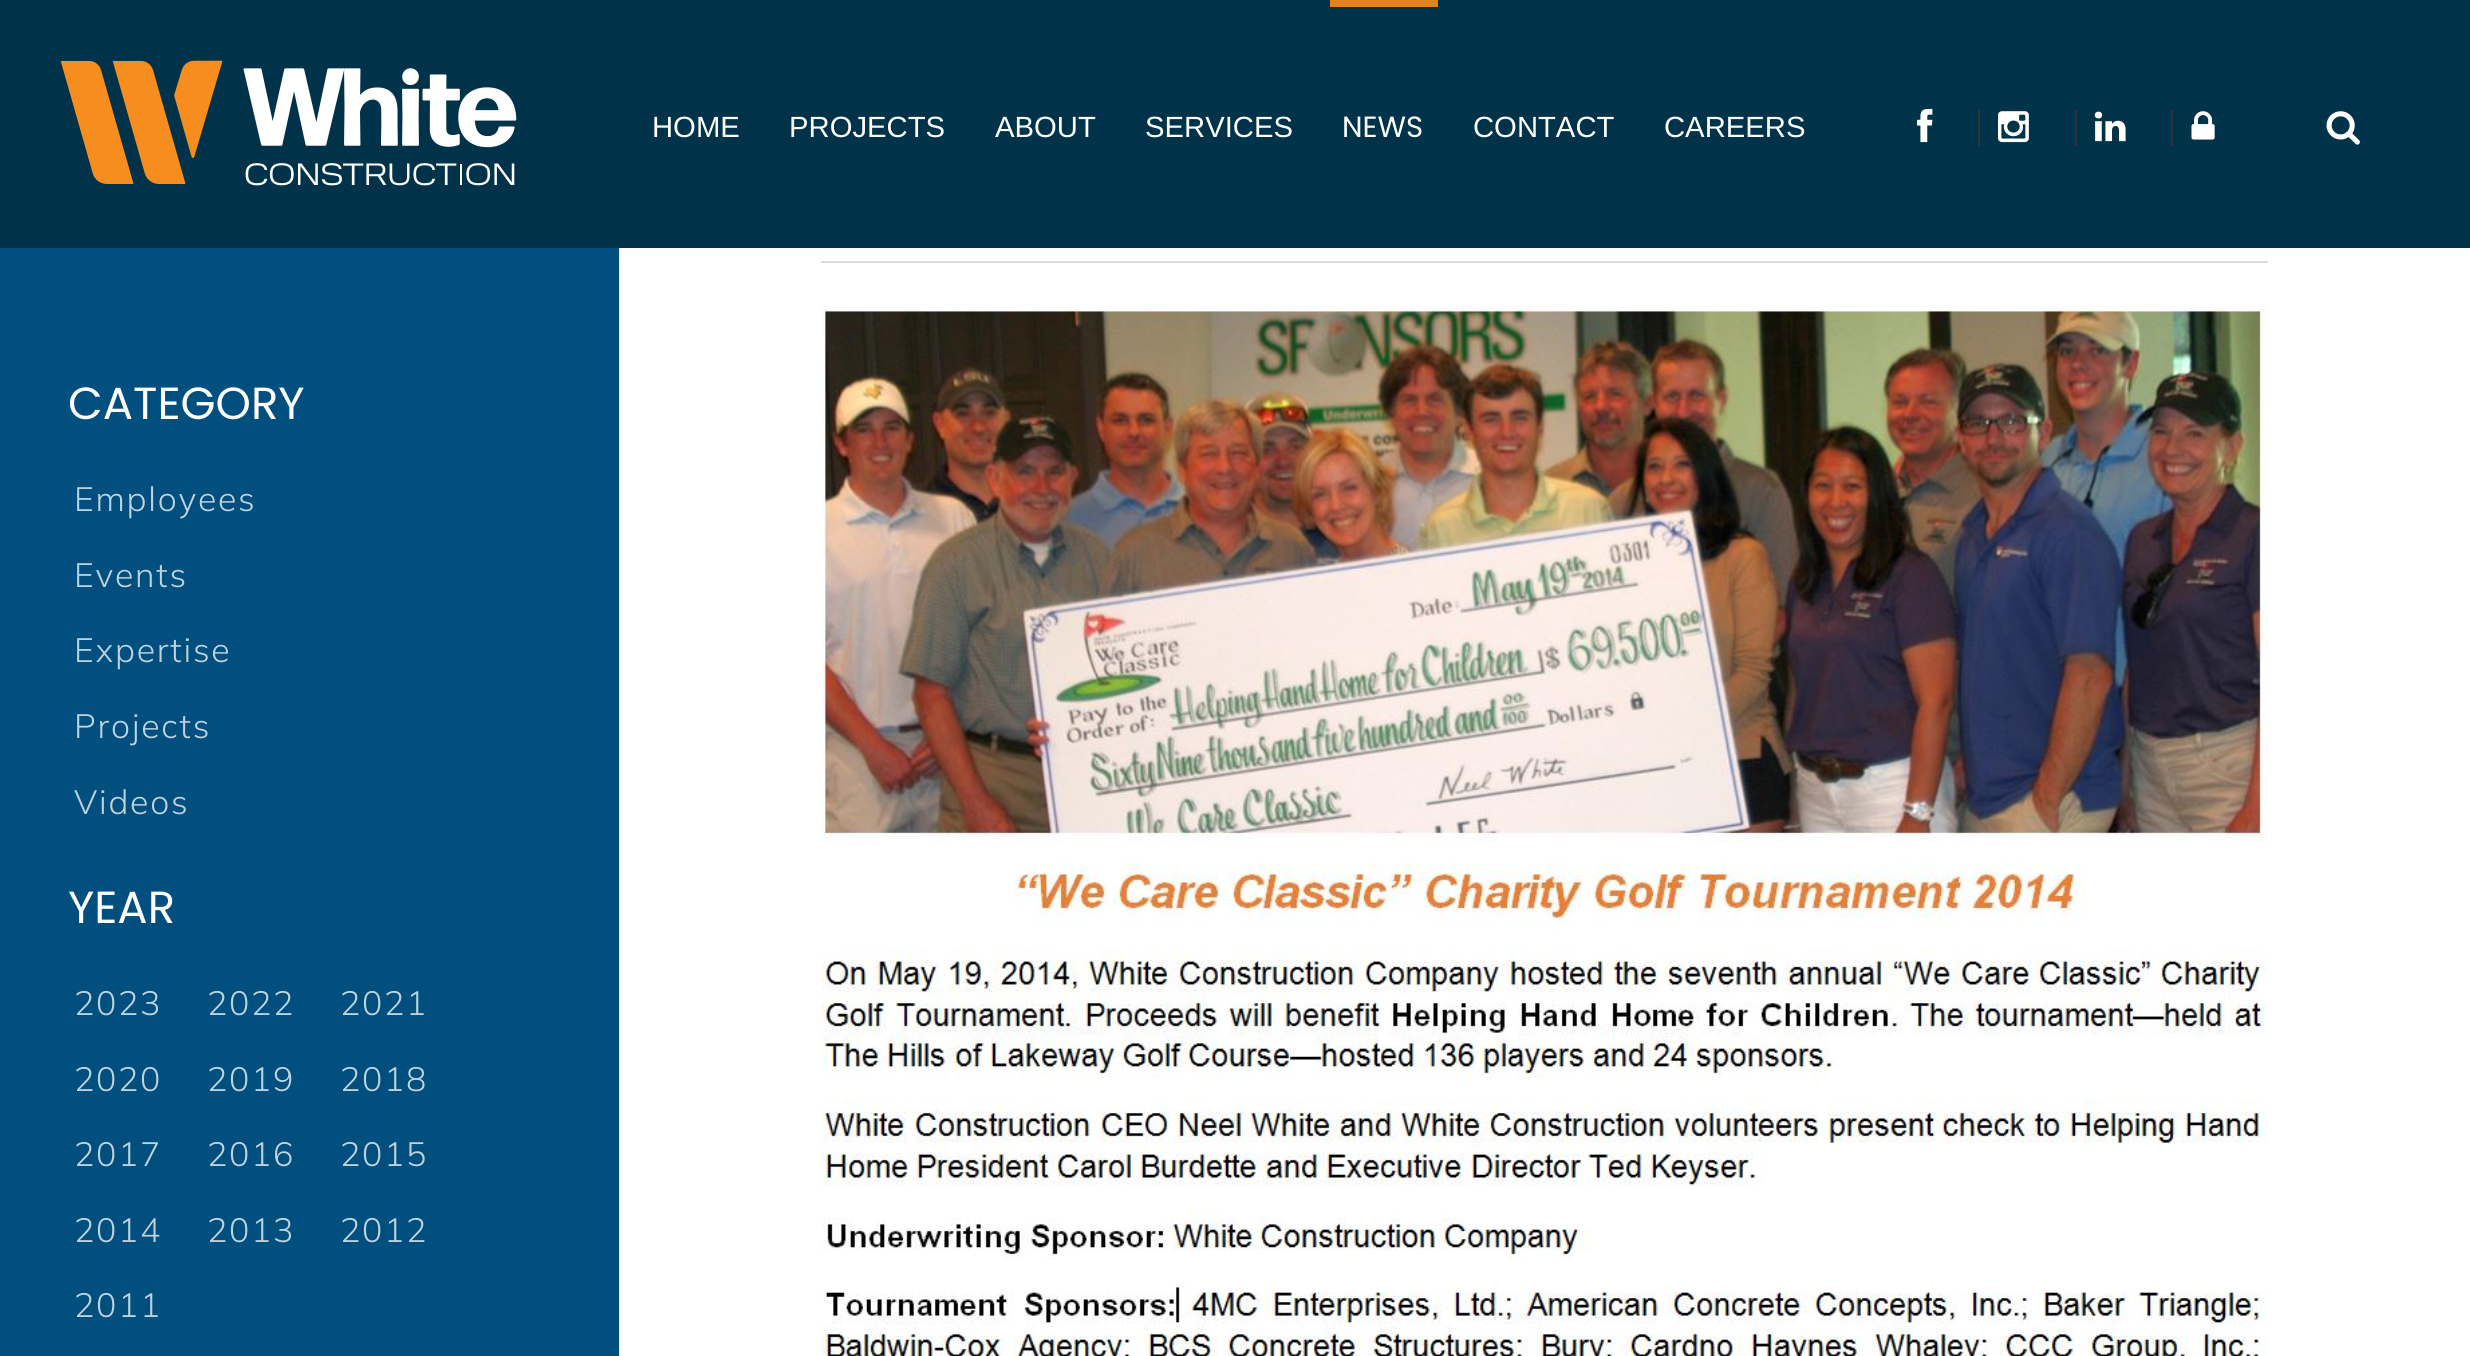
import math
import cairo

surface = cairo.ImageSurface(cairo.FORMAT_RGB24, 2470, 1356)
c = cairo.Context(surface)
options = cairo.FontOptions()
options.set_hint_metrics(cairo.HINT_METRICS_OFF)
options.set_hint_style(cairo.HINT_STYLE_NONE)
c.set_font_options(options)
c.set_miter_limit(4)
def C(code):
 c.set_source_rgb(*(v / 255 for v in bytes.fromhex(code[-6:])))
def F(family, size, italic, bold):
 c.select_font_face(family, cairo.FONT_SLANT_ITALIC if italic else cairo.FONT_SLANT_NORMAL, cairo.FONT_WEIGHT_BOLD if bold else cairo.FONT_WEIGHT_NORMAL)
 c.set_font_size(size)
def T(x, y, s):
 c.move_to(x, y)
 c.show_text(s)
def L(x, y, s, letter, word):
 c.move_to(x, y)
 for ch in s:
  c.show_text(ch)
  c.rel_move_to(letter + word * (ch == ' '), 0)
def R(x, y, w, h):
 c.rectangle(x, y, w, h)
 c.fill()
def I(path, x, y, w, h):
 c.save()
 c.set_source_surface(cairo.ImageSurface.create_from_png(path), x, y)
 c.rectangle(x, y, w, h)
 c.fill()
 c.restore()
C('ffffff')
c.paint()
C('003349')
R(0,0,2470,248)
I('1.png',60,60,457,126)
F('Liberation Sans',29.25,0,0)
C('ffffff')
T(652,137,'HOME')
T(789,137,'PROJECTS')
T(995,137,'ABOUT')
T(1145,137,'SERVICES')
C('e58117')
R(1330,0,108,7)
F('Poppins',29.25,0,0)
C('ffffff')
T(1342,137,'NEWS')
F('Liberation Sans',29.25,0,0)
T(1473,137,'CONTACT')
T(1664,137,'CAREERS')
I('2.png',1917,108,16,35)
C('333333')
R(1978,110,2,36)
I('3.png',1998,111,31,32)
R(2075,110,2,36)
I('4.png',2094,111,32,31)
R(2171,110,2,36)
I('5.png',2191,111,24,29)
I('6.png',2326,111,34,34)
C('004f7e')
R(0,248,619,1108)
F('Poppins',45,0,0)
C('ffffff')
T(68,419,'CATEGORY')
F('Mulish Light',33.75,0,0)
C('bfd3df')
L(74,511,'Employees',1.75,0)
L(74,587,'Events',1.75,0)
L(74,662,'Expertise',1.75,0)
L(74,738,'Projects',1.75,0)
L(74,814,'Videos',1.75,0)
F('Poppins',45,0,0)
C('ffffff')
T(68,923,'YEAR')
F('Mulish Light',33.75,0,0)
C('bfd3df')
L(74,1015,'2023',1.75,0)
L(207,1015,'2022',1.75,0)
L(340,1015,'2021',1.75,0)
L(74,1091,'2020',1.75,0)
L(207,1091,'2019',1.75,0)
L(340,1091,'2018',1.75,0)
L(74,1166,'2017',1.75,0)
L(207,1166,'2016',1.75,0)
L(340,1166,'2015',1.75,0)
L(74,1242,'2014',1.75,0)
L(207,1242,'2013',1.75,0)
L(340,1242,'2012',1.75,0)
L(74,1317,'2011',1.75,0)
C('dddddd')
R(821,261,1447,2)
I('7.png',821,306,1447,1050)
surface.write_to_png('o.png')
